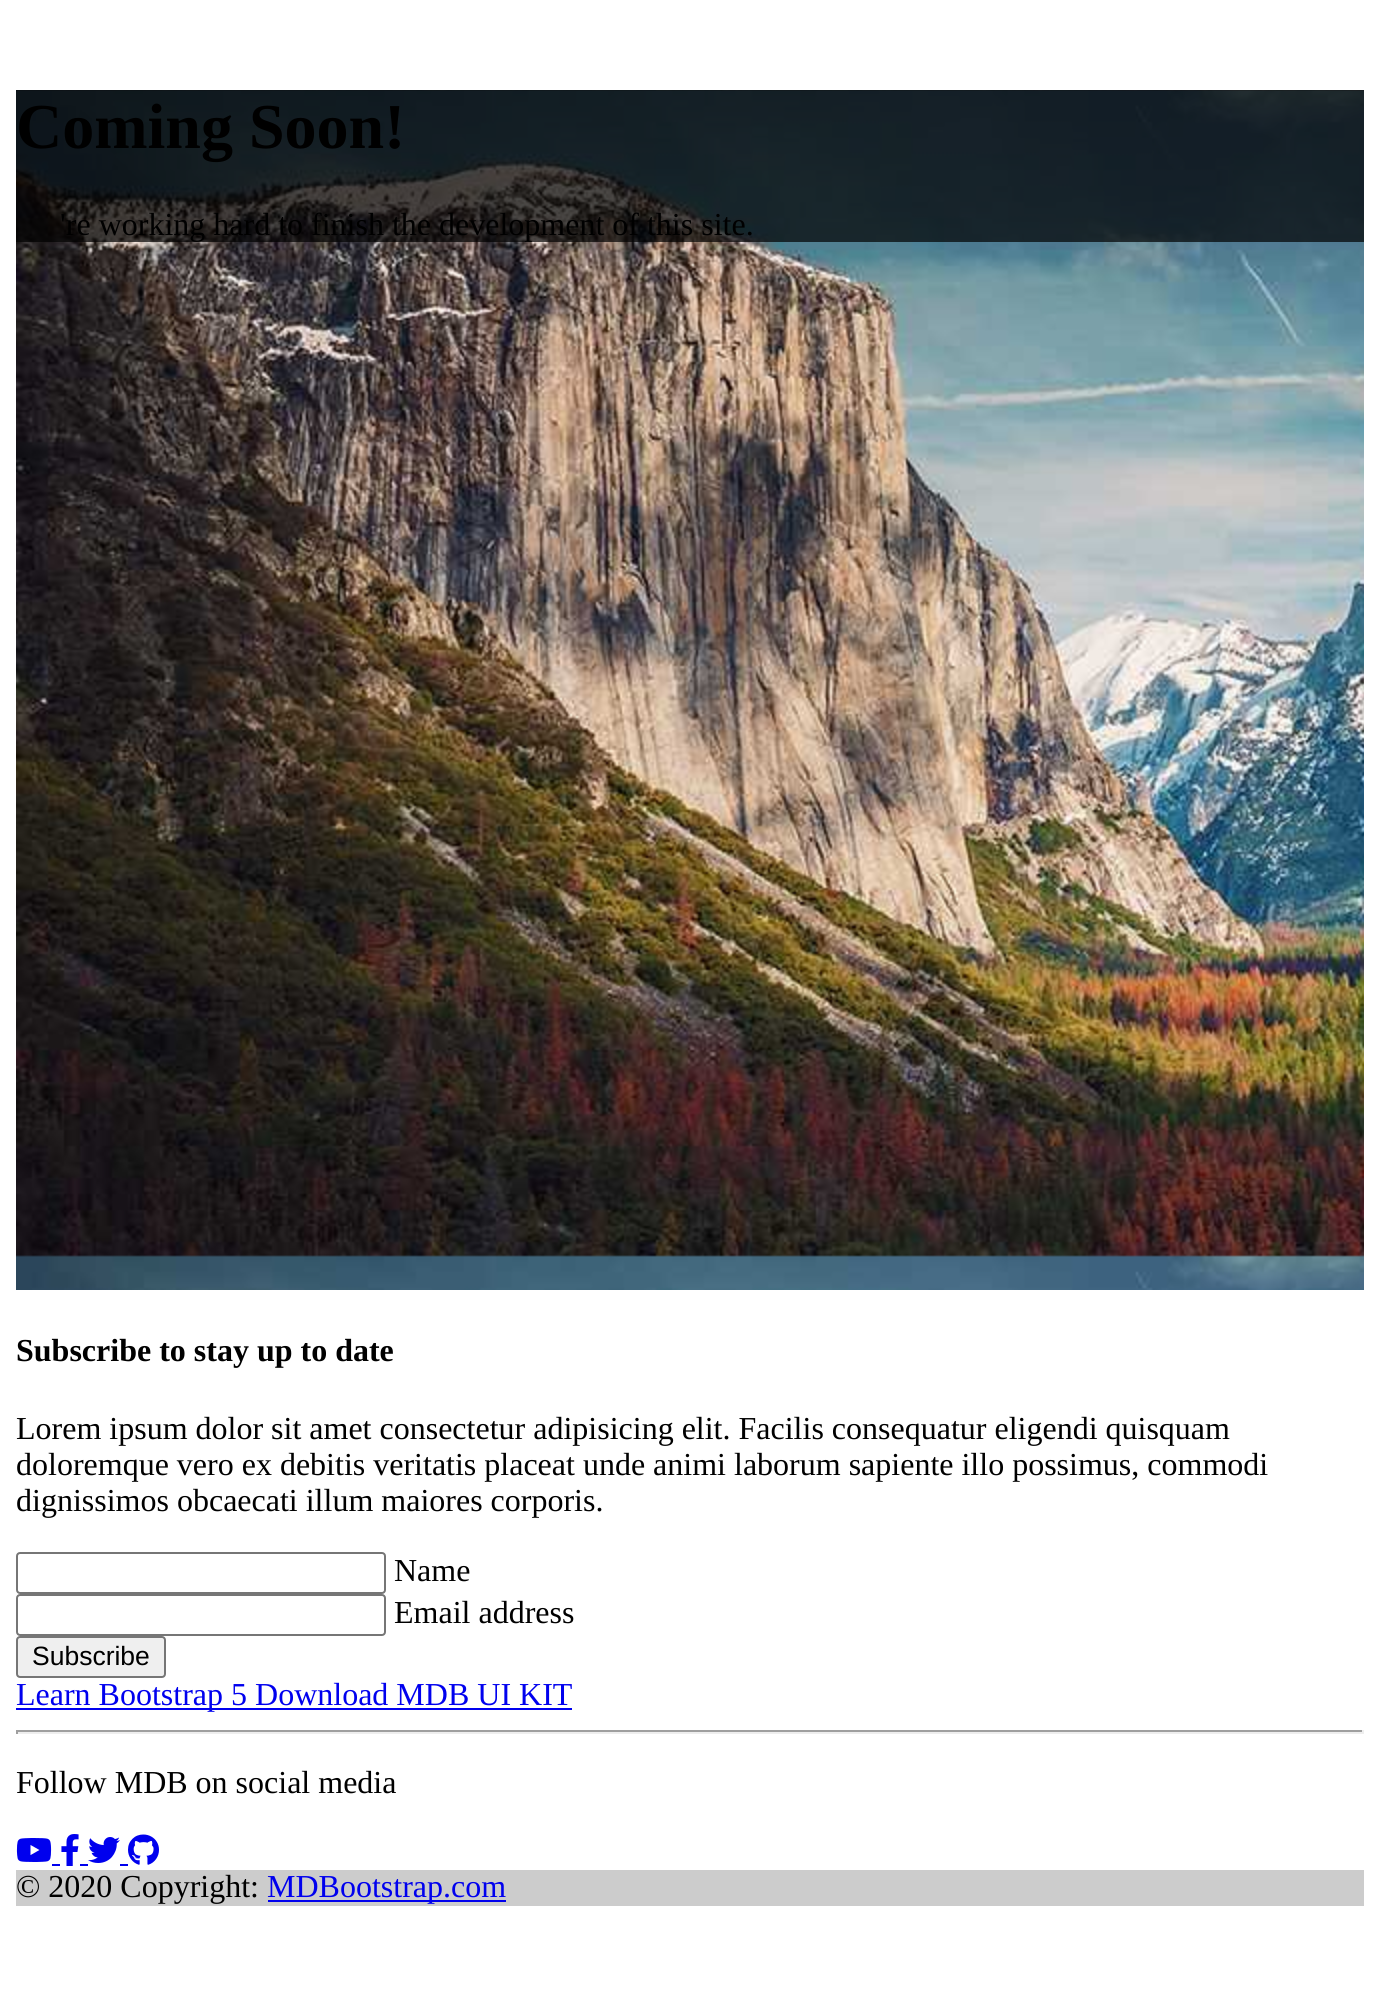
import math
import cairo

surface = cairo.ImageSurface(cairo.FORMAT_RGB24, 1380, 2012)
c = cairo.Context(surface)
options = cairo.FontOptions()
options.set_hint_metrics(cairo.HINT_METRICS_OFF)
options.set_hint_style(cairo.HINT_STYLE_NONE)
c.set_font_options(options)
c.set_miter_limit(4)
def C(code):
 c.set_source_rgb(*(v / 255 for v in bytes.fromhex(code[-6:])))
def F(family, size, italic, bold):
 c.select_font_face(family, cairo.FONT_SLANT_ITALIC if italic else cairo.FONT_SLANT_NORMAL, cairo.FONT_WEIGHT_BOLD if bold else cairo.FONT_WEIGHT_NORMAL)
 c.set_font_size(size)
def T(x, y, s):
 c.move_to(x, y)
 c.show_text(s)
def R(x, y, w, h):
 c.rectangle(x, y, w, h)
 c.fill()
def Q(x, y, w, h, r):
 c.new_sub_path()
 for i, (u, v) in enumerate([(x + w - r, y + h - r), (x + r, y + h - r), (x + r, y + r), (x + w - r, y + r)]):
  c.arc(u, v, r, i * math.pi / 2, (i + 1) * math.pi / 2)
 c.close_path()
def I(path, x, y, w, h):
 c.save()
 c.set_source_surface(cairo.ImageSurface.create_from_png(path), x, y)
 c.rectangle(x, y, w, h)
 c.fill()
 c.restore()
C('ffffff')
c.paint()
I('1.png',16,90,1348,1200)
c.set_source_rgba(0,0,0,0.7)
R(16,90,1348,152)
F('Liberation Serif',64,0,1)
C('000000')
T(16,148,'Coming Soon!')
F('Liberation Serif',32,0,0)
T(60,235,'\'re working hard to finish the development of this site.')
F('Liberation Serif',32,0,1)
T(16,1361,'Subscribe to stay up to date')
F('Liberation Serif',32,0,0)
T(16,1439,'Lorem ipsum dolor sit amet consectetur adipisicing elit. Facilis consequatur eligendi quisquam')
T(16,1475,'doloremque vero ex debitis veritatis placeat unde animi laborum sapiente illo possimus, commodi')
T(16,1511,'dignissimos obcaecati illum maiores corporis.')
Q(17,1553,368,40,3)
C('767676')
c.stroke()
C('000000')
T(394,1581,'Name')
Q(17,1595,368,40,3)
C('767676')
c.stroke()
C('000000')
T(394,1623,'Email address')
C('efefef')
Q(17,1637,148,40,3)
c.fill_preserve()
C('767676')
c.stroke()
F('Liberation Sans',26.5,0,0)
C('000000')
T(32,1665,'Subscribe')
C('0000ee')
R(16,1708,556,2)
F('Liberation Serif',32,0,0)
T(16,1705,'Learn Bootstrap 5 Download MDB UI KIT')
C('9f9f9f')
R(16,1730,1348,2)
C('eeeeee')
R(1362,1730,2,4)
R(16,1732,1348,2)
C('9f9f9f')
R(16,1730,2,4)
C('000000')
T(16,1793,'Follow MDB on social media')
I('2.png',16,1838,36,24)
C('0000ee')
R(52,1864,8,2)
I('3.png',61,1834,18,32)
R(80,1864,8,2)
I('4.png',88,1837,32,26)
R(120,1864,8,2)
I('5.png',128,1834,31,31)
C('cccccc')
R(16,1870,1348,36)
C('000000')
T(16,1897,'© 2020 Copyright:')
C('0000ee')
R(268,1900,238,2)
T(267,1897,'MDBootstrap.com')
surface.write_to_png('o.png')
